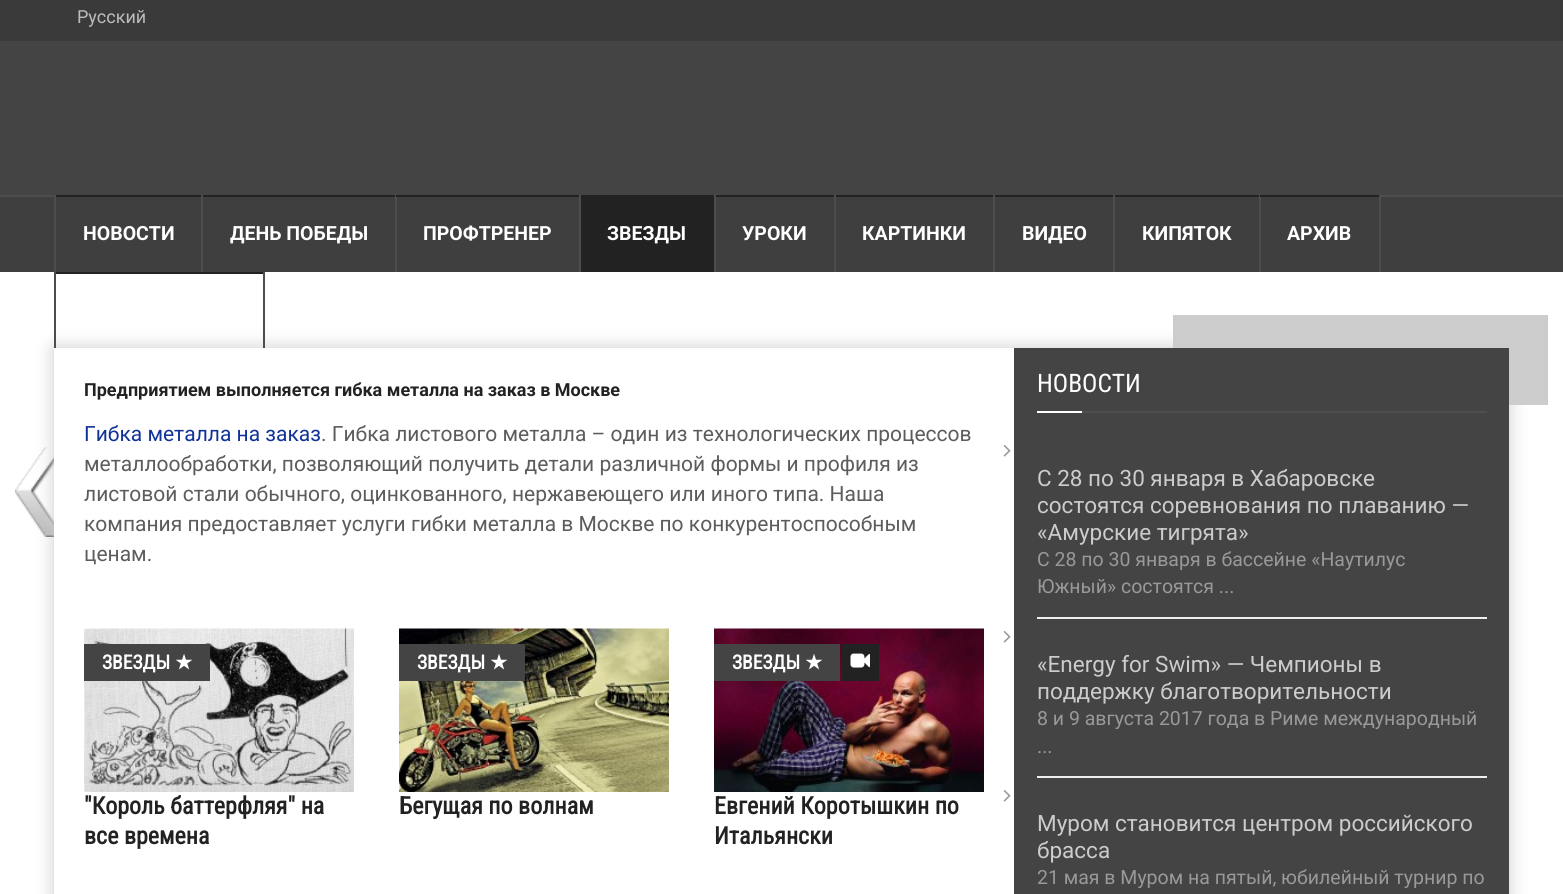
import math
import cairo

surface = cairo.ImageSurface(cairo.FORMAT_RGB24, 1563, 894)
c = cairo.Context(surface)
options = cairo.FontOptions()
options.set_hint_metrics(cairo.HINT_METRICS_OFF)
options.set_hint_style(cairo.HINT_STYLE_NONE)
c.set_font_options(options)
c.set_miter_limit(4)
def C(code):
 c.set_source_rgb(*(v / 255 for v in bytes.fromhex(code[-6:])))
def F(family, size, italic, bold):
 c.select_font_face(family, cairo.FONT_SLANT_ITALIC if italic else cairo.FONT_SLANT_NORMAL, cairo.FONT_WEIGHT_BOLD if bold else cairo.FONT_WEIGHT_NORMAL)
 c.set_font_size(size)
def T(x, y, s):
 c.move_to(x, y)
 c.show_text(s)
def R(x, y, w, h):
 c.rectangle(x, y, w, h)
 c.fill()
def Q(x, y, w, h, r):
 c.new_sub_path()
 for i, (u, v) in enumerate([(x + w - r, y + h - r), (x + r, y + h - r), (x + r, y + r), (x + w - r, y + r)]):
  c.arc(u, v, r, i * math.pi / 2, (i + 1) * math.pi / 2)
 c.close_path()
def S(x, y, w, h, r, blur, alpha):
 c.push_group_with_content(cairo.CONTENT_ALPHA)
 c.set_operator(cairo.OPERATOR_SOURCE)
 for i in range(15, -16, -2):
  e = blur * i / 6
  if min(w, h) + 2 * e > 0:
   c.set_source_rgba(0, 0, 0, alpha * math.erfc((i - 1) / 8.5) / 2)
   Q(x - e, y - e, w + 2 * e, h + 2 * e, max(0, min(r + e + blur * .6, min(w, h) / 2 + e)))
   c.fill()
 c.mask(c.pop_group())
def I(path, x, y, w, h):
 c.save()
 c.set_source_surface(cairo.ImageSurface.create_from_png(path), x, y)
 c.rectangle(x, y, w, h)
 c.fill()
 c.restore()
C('ffffff')
c.paint()
I('1.png',15,447,39,90)
C('444444')
R(0,41,1563,154)
C('3a3a3a')
R(0,0,1563,41)
C('4d4d4d')
R(0,195,1563,2)
F('Roboto',18,0,0)
C('bcbcbc')
T(77,23,'Русский')
C('3f3f3f')
R(0,197,1563,75)
C('cccccc')
R(1173,315,375,90)
C('cccccc')
S(54,348,1455,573,0,9,1)
C('4d4d4d')
R(54,195,2,153)
R(201,195,2,77)
C('222222')
R(56,195,145,2)
F('Roboto',19.5,0,1)
C('ffffff')
T(83,240,'НОВОСТИ')
C('4d4d4d')
R(395,195,2,77)
C('222222')
R(203,195,192,2)
C('ffffff')
T(230,240,'ДЕНЬ ПОБЕДЫ')
C('4d4d4d')
R(579,195,2,77)
C('222222')
R(396,195,183,2)
C('ffffff')
T(423,240,'ПРОФТРЕНЕР')
C('4d4d4d')
R(714,195,2,77)
C('222222')
R(581,195,133,77)
C('ffffff')
T(607,240,'ЗВЕЗДЫ')
C('4d4d4d')
R(834,195,2,77)
C('222222')
R(716,195,118,2)
C('ffffff')
T(742,240,'УРОКИ')
C('4d4d4d')
R(993,195,2,77)
C('222222')
R(836,195,157,2)
C('ffffff')
T(862,240,'КАРТИНКИ')
C('4d4d4d')
R(1113,195,2,77)
C('222222')
R(995,195,118,2)
C('ffffff')
T(1022,240,'ВИДЕО')
C('4d4d4d')
R(1259,195,2,77)
C('222222')
R(1115,195,144,2)
C('ffffff')
T(1142,240,'КИПЯТОК')
C('4d4d4d')
R(1379,195,2,77)
C('222222')
R(1260,195,119,2)
C('ffffff')
T(1287,240,'АРХИВ')
C('4d4d4d')
R(263,272,2,76)
C('222222')
R(56,272,207,2)
C('ffffff')
R(54,348,960,546)
F('Roboto',18,0,1)
C('222222')
T(84,396,'Предприятием выполняется гибка металла на заказ в Москве')
F('Roboto',21,0,0)
C('103399')
T(84,441,'Гибка металла на заказ')
C('5c5c5c')
T(321,441,'. Гибка листового металла – один из технологических процессов')
T(84,471,'металлообработки, позволяющий получить детали различной формы и профиля из')
T(84,501,'листовой стали обычного, оцинкованного, нержавеющего или иного типа. Наша')
T(84,531,'компания предоставляет услуги гибки металла в Москве по конкурентоспособным')
T(84,561,'ценам.')
I('2.png',84,628,270,164)
C('444444')
R(84,644,126,37)
F('Roboto Condensed',19.5,0,1)
C('ffffff')
T(102,669,'ЗВЕЗДЫ')
F('DejaVu Sans',19.5,0,1)
T(175,669,'★')
F('Roboto Condensed',24,0,1)
C('222222')
T(84,814,'"Король баттерфляя" на')
T(84,844,'все времена')
I('3.png',399,628,270,164)
C('444444')
R(399,644,126,37)
F('Roboto Condensed',19.5,0,1)
C('ffffff')
T(417,669,'ЗВЕЗДЫ')
F('DejaVu Sans',19.5,0,1)
T(490,669,'★')
F('Roboto Condensed',24,0,1)
C('222222')
T(399,814,'Бегущая по волнам')
I('4.png',714,628,270,164)
C('444444')
R(714,644,126,37)
F('Roboto Condensed',19.5,0,1)
C('ffffff')
T(732,669,'ЗВЕЗДЫ')
F('DejaVu Sans',19.5,0,1)
T(805,669,'★')
C('222222')
R(842,644,37,37)
I('5.png',850,653,20,15)
F('Roboto Condensed',24,0,1)
T(714,814,'Евгений Коротышкин по')
T(714,844,'Итальянски')
C('444444')
R(1014,348,495,546)
C('4e4e4e')
R(1082,411,405,2)
F('Roboto Condensed',25.5,0,0)
C('ffffff')
T(1037,392,'НОВОСТИ')
R(1037,411,45,2)
C('eeeeee')
R(1037,617,450,2)
I('6.png',1003,445,8,12)
F('Roboto',22.5,0,0)
C('cccccc')
T(1037,486,'С 28 по 30 января в Хабаровске')
T(1037,513,'состоятся соревнования по плаванию —')
T(1037,540,'«Амурские тигрята»')
F('Roboto',19.5,0,0)
C('999999')
T(1037,566,'С 28 по 30 января в бассейне «Наутилус')
T(1037,593,'Южный» состоятся ...')
C('eeeeee')
R(1037,776,450,2)
I('6.png',1003,631,8,12)
F('Roboto',22.5,0,0)
C('cccccc')
T(1037,672,'«Energy for Swim» — Чемпионы в')
T(1037,699,'поддержку благотворительности')
F('Roboto',19.5,0,0)
C('999999')
T(1037,725,'8 и 9 августа 2017 года в Риме международный')
T(1037,753,'...')
I('6.png',1003,790,8,12)
F('Roboto',22.5,0,0)
C('cccccc')
T(1037,831,'Муром становится центром российского')
T(1037,858,'брасса')
F('Roboto',19.5,0,0)
C('999999')
T(1037,884,'21 мая в Муром на пятый, юбилейный турнир по')
surface.write_to_png('o.png')
